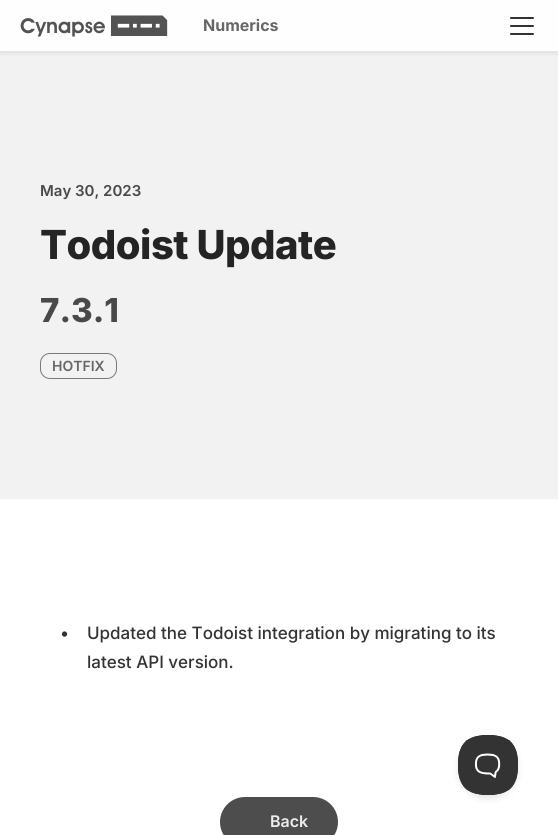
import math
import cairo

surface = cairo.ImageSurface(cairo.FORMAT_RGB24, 558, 835)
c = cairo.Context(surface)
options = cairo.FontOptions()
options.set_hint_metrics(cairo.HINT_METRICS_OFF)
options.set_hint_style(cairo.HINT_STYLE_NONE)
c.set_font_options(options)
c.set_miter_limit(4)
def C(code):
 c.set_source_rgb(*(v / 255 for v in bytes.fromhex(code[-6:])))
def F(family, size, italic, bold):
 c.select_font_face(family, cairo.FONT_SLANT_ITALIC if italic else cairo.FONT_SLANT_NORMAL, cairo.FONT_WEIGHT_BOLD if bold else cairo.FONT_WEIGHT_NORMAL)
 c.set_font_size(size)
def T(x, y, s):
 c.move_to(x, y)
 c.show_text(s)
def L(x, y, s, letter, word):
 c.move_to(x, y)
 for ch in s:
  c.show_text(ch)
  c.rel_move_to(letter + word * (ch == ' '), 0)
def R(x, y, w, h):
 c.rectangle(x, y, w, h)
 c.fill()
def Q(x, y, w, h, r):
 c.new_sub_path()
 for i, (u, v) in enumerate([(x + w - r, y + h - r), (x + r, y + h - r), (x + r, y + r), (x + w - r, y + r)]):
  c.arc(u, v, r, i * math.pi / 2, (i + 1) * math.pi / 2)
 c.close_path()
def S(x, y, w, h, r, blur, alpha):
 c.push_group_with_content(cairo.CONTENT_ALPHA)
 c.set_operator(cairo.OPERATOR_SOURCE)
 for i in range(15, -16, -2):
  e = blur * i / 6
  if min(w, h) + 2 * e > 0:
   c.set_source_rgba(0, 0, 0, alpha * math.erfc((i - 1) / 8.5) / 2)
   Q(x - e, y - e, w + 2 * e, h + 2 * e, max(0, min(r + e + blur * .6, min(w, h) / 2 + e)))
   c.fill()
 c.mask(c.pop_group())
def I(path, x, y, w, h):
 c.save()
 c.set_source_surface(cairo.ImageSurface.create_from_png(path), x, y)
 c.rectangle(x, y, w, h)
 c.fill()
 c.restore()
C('ffffff')
c.paint()
C('f2f2f2')
R(0,52,558,447)
C('000000')
S(0,1,558,52,0,2.5,.1)
C('fefefe')
R(0,0,558,51)
I('1.png',20,15,148,22)
F('Inter',16,0,1)
C('666666')
T(203,31,'Numerics')
C('333333')
Q(510,17,24,2,1)
c.fill()
Q(510,25,24,2,1)
c.fill()
Q(510,33,24,2,1)
c.fill()
C('e5e5e5')
R(0,51,558,1)
F('Inter SemiBold',15,0,0)
C('494949')
T(40,196,'May 30, 2023')
F('Inter ExtraBold',40,0,0)
C('242424')
L(40,259,'Todoist Update',-.5,0)
F('Inter ExtraBold',33,0,0)
C('494949')
T(40,322,'7.3.1')
Q(40.5,353.5,76,25,9.5)
C('797979')
c.set_line_width(1)
c.stroke()
F('Inter SemiBold',14,0,0)
C('666666')
T(52,371,'HOTFIX')
F('Inter Medium',17,0,0)
C('333333')
T(60,639,'•')
T(87,639,'Updated the Todoist integration by migrating to its')
T(87,668,'latest API version.')
C('4d4d4d')
Q(220,797,118,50,25)
c.fill()
F('Inter SemiBold',16,0,0)
C('ededed')
T(270,827,'Back')
C('000000')
S(458,739,60,60,30,3.5,.1)
I('2.png',458,735,60,60)
surface.write_to_png('o.png')
